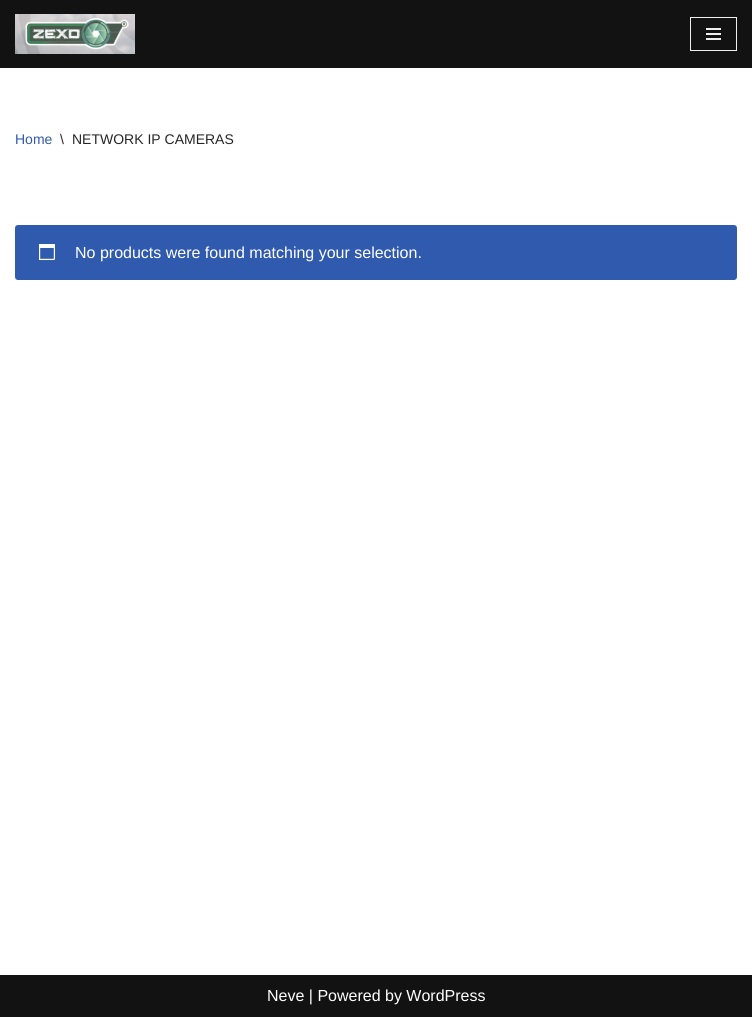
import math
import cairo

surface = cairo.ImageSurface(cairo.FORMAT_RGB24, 752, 1017)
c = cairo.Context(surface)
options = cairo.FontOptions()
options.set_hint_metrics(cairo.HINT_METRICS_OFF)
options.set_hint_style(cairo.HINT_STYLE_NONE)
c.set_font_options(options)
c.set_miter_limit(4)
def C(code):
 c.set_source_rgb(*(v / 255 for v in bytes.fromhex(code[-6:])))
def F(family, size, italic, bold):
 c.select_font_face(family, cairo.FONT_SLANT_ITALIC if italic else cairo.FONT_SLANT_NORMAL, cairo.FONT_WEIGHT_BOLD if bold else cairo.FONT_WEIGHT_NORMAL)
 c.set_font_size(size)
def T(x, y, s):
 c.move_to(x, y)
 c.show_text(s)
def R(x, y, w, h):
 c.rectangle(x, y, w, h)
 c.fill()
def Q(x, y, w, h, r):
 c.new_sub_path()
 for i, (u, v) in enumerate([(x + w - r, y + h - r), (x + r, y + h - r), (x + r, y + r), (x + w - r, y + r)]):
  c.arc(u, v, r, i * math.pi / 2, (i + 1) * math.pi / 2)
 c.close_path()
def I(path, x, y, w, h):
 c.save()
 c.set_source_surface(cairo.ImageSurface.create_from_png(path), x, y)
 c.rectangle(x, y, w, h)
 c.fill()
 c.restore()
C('ffffff')
c.paint()
C('121212')
R(0,0,752,68)
I('1.png',15,14,120,40)
c.rectangle(690.5,17.5,46,33)
C('eeeeee')
c.set_line_width(1)
c.stroke()
R(706,28,15,2)
R(706,33,15,2)
R(706,38,15,2)
F('Liberation Sans',14,0,0)
C('2f5aae')
T(15,144,'Home')
C('272626')
T(60,144,'\\')
T(72,144,'NETWORK IP CAMERAS')
C('2f5aae')
Q(15,225,722,55,3)
c.fill()
I('2.png',39,244,16,16)
F('Liberation Sans',16,0,0)
C('ffffff')
T(75,258,'No products were found matching your selection.')
C('121212')
R(0,975,752,42)
C('ffffff')
T(267,1001,'Neve | Powered by WordPress')
surface.write_to_png('o.png')
